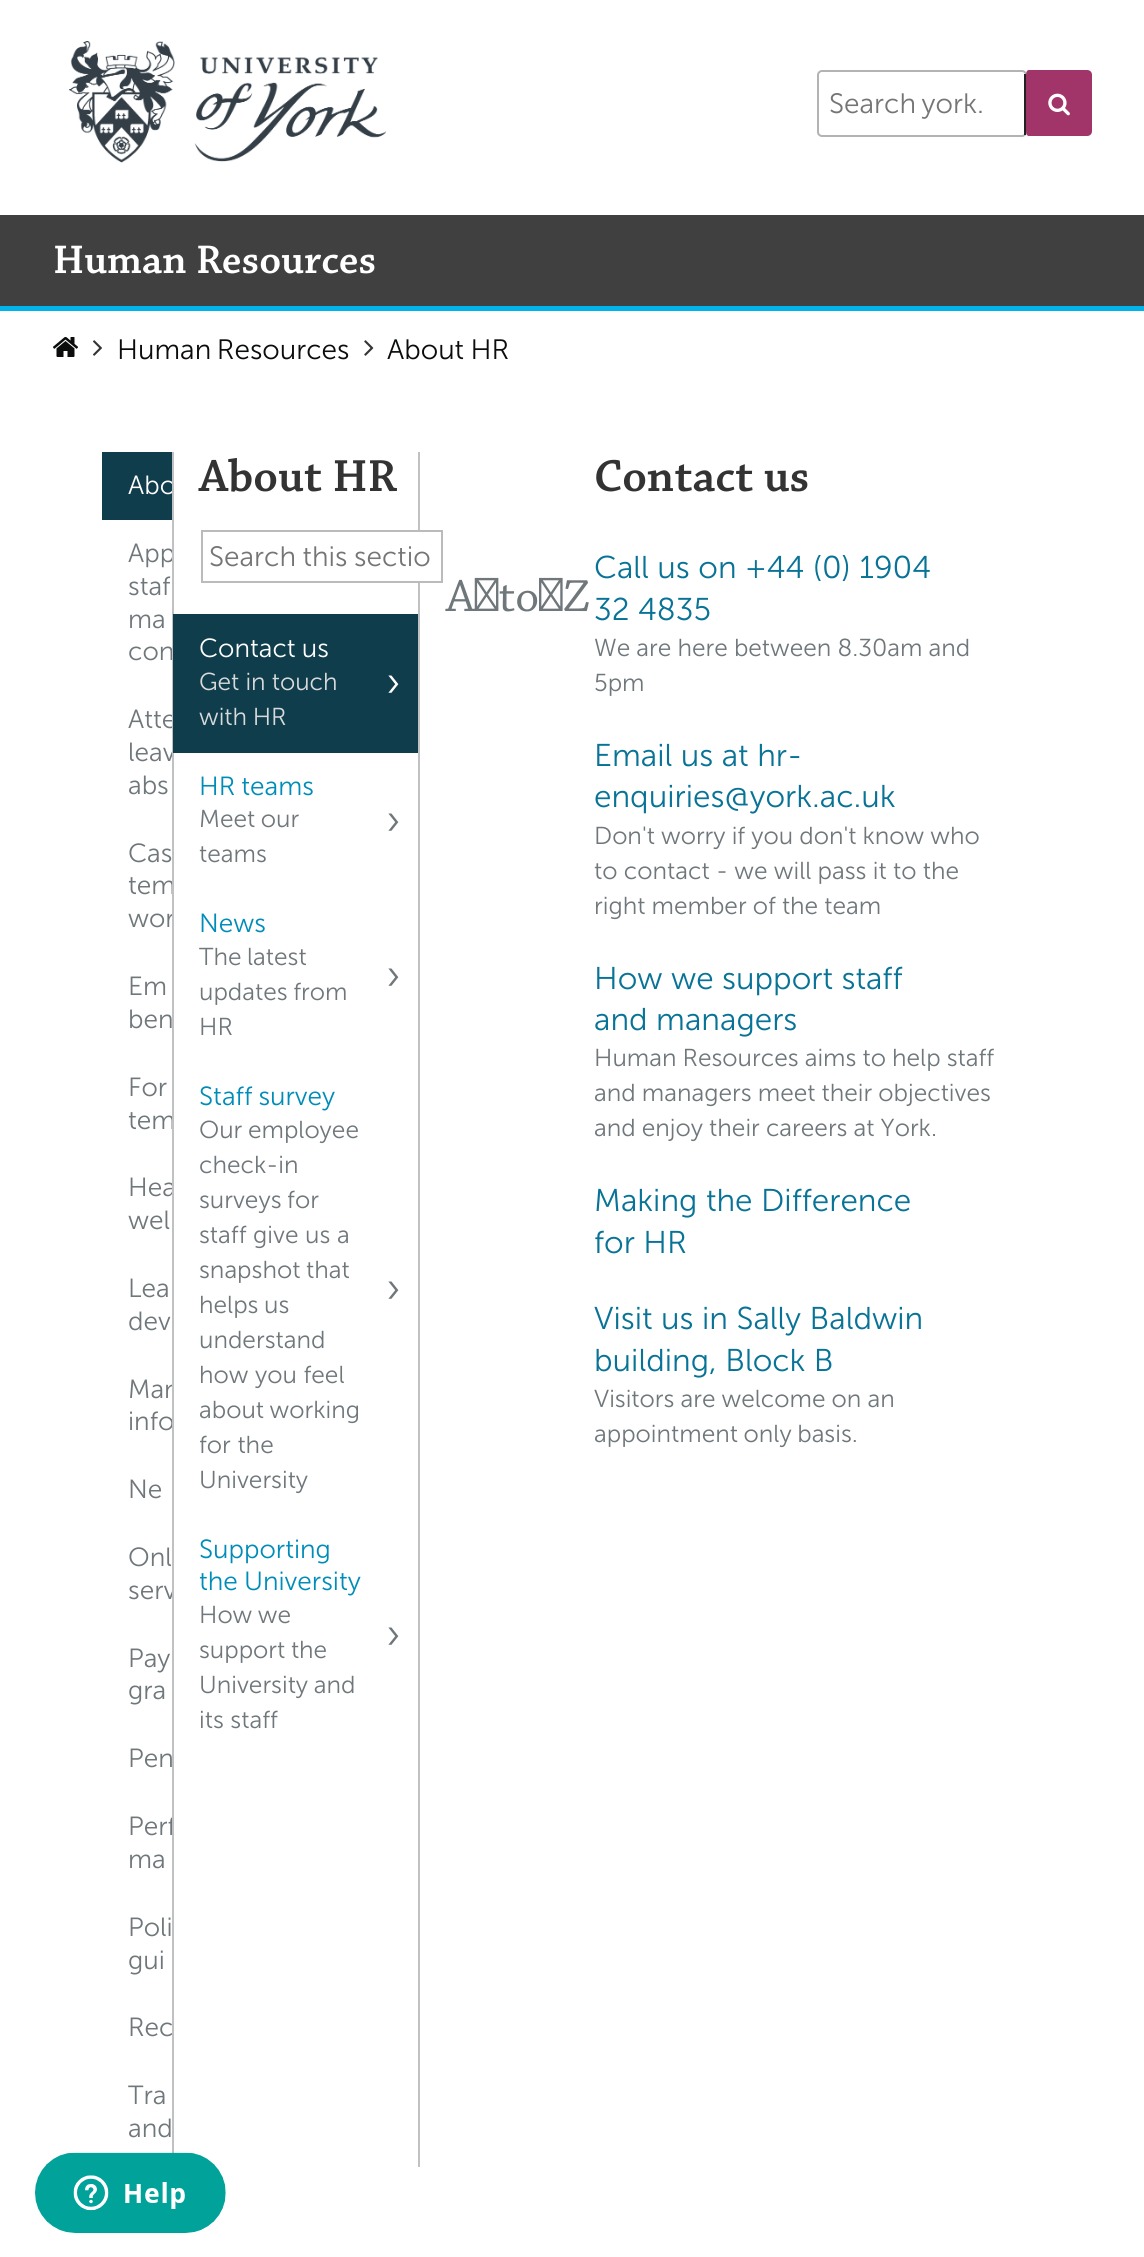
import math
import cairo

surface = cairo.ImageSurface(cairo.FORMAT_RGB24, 1144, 2257)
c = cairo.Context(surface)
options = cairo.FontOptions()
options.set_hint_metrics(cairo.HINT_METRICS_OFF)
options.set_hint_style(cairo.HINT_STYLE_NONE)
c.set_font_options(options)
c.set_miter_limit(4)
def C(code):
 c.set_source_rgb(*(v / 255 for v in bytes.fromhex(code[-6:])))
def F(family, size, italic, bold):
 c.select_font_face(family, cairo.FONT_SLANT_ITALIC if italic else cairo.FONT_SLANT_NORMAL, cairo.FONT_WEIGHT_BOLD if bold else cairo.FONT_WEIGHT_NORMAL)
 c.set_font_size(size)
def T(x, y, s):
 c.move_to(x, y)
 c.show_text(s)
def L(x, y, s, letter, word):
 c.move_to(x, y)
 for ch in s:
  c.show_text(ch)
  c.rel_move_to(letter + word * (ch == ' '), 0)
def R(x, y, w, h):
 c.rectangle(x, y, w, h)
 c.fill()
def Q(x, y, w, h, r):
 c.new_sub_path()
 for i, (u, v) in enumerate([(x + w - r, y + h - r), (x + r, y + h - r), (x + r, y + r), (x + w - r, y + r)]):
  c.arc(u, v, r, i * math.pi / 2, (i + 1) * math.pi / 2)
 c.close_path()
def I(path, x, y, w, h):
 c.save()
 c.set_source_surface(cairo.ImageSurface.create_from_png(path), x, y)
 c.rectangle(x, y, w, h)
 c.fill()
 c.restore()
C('ffffff')
c.paint()
I('1.png',69,41,317,122)
Q(818,71,208,65,4)
C('b3b3b3')
c.stroke()
F('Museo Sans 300 Light',28,0,0)
C('757575')
L(829,113,'Search york.',0,-2)
C('a13469')
c.new_path()
c.move_to(1029,70)
c.line_to(1087,70)
c.curve_to(1090,70,1092,72,1092,75)
c.line_to(1092,131)
c.curve_to(1092,134,1090,136,1087,136)
c.line_to(1029,136)
c.curve_to(1027,136,1026,134,1026,131)
c.line_to(1026,75)
c.curve_to(1026,72,1027,70,1029,70)
c.close_path()
c.fill()
C('222222')
R(1024,74,2,61)
I('2.png',1048,93,22,23)
C('404040')
R(0,215,1144,91)
F('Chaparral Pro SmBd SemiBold',42,0,0)
C('ffffff')
T(53,273,'Human Resources')
C('00b3eb')
R(0,306,1144,5)
I('3.png',53,337,25,20)
I('4.png',93,340,9,16)
F('Museo Sans 300 Light',28,0,0)
C('0b0c0c')
L(117,359,'Human Resources',0,-2)
I('5.png',364,340,10,16)
L(387,359,'About HR',0,-1)
C('0f3d4c')
R(102,452,70,68)
F('Museo Sans 300 Light',26.25,0,0)
C('ffffff')
T(128,494,'Abo')
C('6f777b')
T(128,562,'App')
T(128,595,'staf')
T(128,628,'ma')
T(128,660,'con')
T(128,728,'Atte')
T(128,761,'leav')
T(128,794,'abs')
T(128,862,'Cas')
T(128,894,'tem')
T(128,927,'wor')
T(128,995,'Em')
T(128,1028,'ben')
T(128,1096,'For')
T(128,1129,'tem')
T(128,1196,'Hea')
T(128,1229,'wel')
T(128,1297,'Lea')
T(128,1330,'dev')
T(128,1398,'Man')
T(128,1430,'info')
T(128,1498,'Ne')
T(128,1566,'Onl')
T(128,1599,'serv')
T(128,1667,'Pay')
T(128,1699,'gra')
T(128,1767,'Pen')
T(128,1835,'Perf')
T(128,1868,'ma')
T(128,1936,'Poli')
T(128,1969,'gui')
T(128,2036,'Rec')
T(128,2104,'Tra')
T(128,2137,'and')
C('ffffff')
R(174,716,4,1108)
C('bfc1c3')
R(172,452,2,1701)
F('Chaparral Pro SmBd SemiBold',47.25,0,0)
C('333333')
T(199,491,'About HR')
C('bfc1c3')
R(418,452,2,1715)
C('ffffff')
R(418,532,2,49)
c.rectangle(202,531,240,51)
C('bbbbbb')
c.stroke()
F('Museo Sans 300 Light',28,0,0)
C('757575')
L(209,566,'Search this sectio',0,-1)
C('0f3d4c')
R(173,614,245,139)
F('Museo Sans 300 Light',26.25,0,0)
C('ffffff')
L(199,657,'Contact us',0,-1)
F('Museo Sans 300 Light',24.5,0,0)
C('d8dadb')
L(199,690,'Get in touch',0,-.5)
L(199,725,'with HR',0,-1)
F('Museo Sans 300 Light',42,0,0)
C('ffffff')
T(386,696,'›')
F('Museo Sans 300 Light',26.25,0,0)
C('008cb8')
L(199,795,'HR teams',0,-1)
F('Museo Sans 300 Light',24.5,0,0)
C('6f777b')
L(199,827,'Meet our',0,-1)
T(199,862,'teams')
F('Museo Sans 300 Light',42,0,0)
T(386,834,'›')
F('Museo Sans 300 Light',26.25,0,0)
C('008cb8')
T(199,932,'News')
F('Museo Sans 300 Light',24.5,0,0)
C('6f777b')
L(199,965,'The latest',0,-1)
L(199,1000,'updates from',0,-1)
T(199,1035,'HR')
F('Museo Sans 300 Light',42,0,0)
T(386,989,'›')
F('Museo Sans 300 Light',26.25,0,0)
C('008cb8')
L(199,1105,'Staff survey',0,-1)
F('Museo Sans 300 Light',24.5,0,0)
C('6f777b')
L(199,1138,'Our employee',0,-1)
T(199,1173,'check-in')
L(199,1208,'surveys for',0,-1)
T(199,1243,'staff give us a')
L(199,1278,'snapshot that',0,-1)
L(199,1313,'helps us',0,-1)
T(199,1348,'understand')
T(199,1383,'how you feel')
L(199,1418,'about working',0,-1)
T(199,1453,'for the')
T(199,1488,'University')
F('Museo Sans 300 Light',42,0,0)
T(386,1302,'›')
F('Museo Sans 300 Light',26.25,0,0)
C('008cb8')
T(199,1558,'Supporting')
L(199,1590,'the University',0,-1)
F('Museo Sans 300 Light',24.5,0,0)
C('6f777b')
L(199,1623,'How we',0,-1)
L(199,1658,'support the',0,-1)
L(199,1693,'University and',0,-1)
T(199,1728,'its staff')
F('Museo Sans 300 Light',42,0,0)
T(386,1648,'›')
F('Chaparral Pro SmBd SemiBold',47.25,0,0)
C('333333')
T(594,491,'Contact us')
F('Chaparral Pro',47.25,0,0)
C('6f777b')
T(446,611,'A to Z')
F('Museo Sans 300 Light',31.5,0,0)
C('087396')
T(594,578,'Call us on +44 (0) 1904')
T(594,620,'32 4835')
F('Museo Sans 300 Light',24.5,0,0)
C('6f777b')
L(594,656,'We are here between 8.30am and',0,-.5)
T(594,691,'5pm')
F('Museo Sans 300 Light',31.5,0,0)
C('087396')
T(594,766,'Email us at hr-')
T(594,807,'enquiries@york.ac.uk')
F('Museo Sans 300 Light',24.5,0,0)
C('6f777b')
L(594,844,'Don\'t worry if you don\'t know who',0,-.5)
L(594,879,'to contact - we will pass it to the',0,-.25)
L(594,914,'right member of the team',0,-.5)
F('Museo Sans 300 Light',31.5,0,0)
C('087396')
T(594,989,'How we support staff')
T(594,1030,'and managers')
F('Museo Sans 300 Light',24.5,0,0)
C('6f777b')
L(594,1066,'Human Resources aims to help staff',0,-.5)
L(594,1101,'and managers meet their objectives',0,-.5)
L(594,1136,'and enjoy their careers at York.',0,-.5)
F('Museo Sans 300 Light',31.5,0,0)
C('087396')
T(594,1211,'Making the Difference')
T(594,1253,'for HR')
T(594,1329,'Visit us in Sally Baldwin')
T(594,1371,'building, Block B')
F('Museo Sans 300 Light',24.5,0,0)
C('6f777b')
L(594,1407,'Visitors are welcome on an',0,-.5)
L(594,1442,'appointment only basis.',0,-1)
I('6.png',35,2152,191,81)
surface.write_to_png('o.png')
